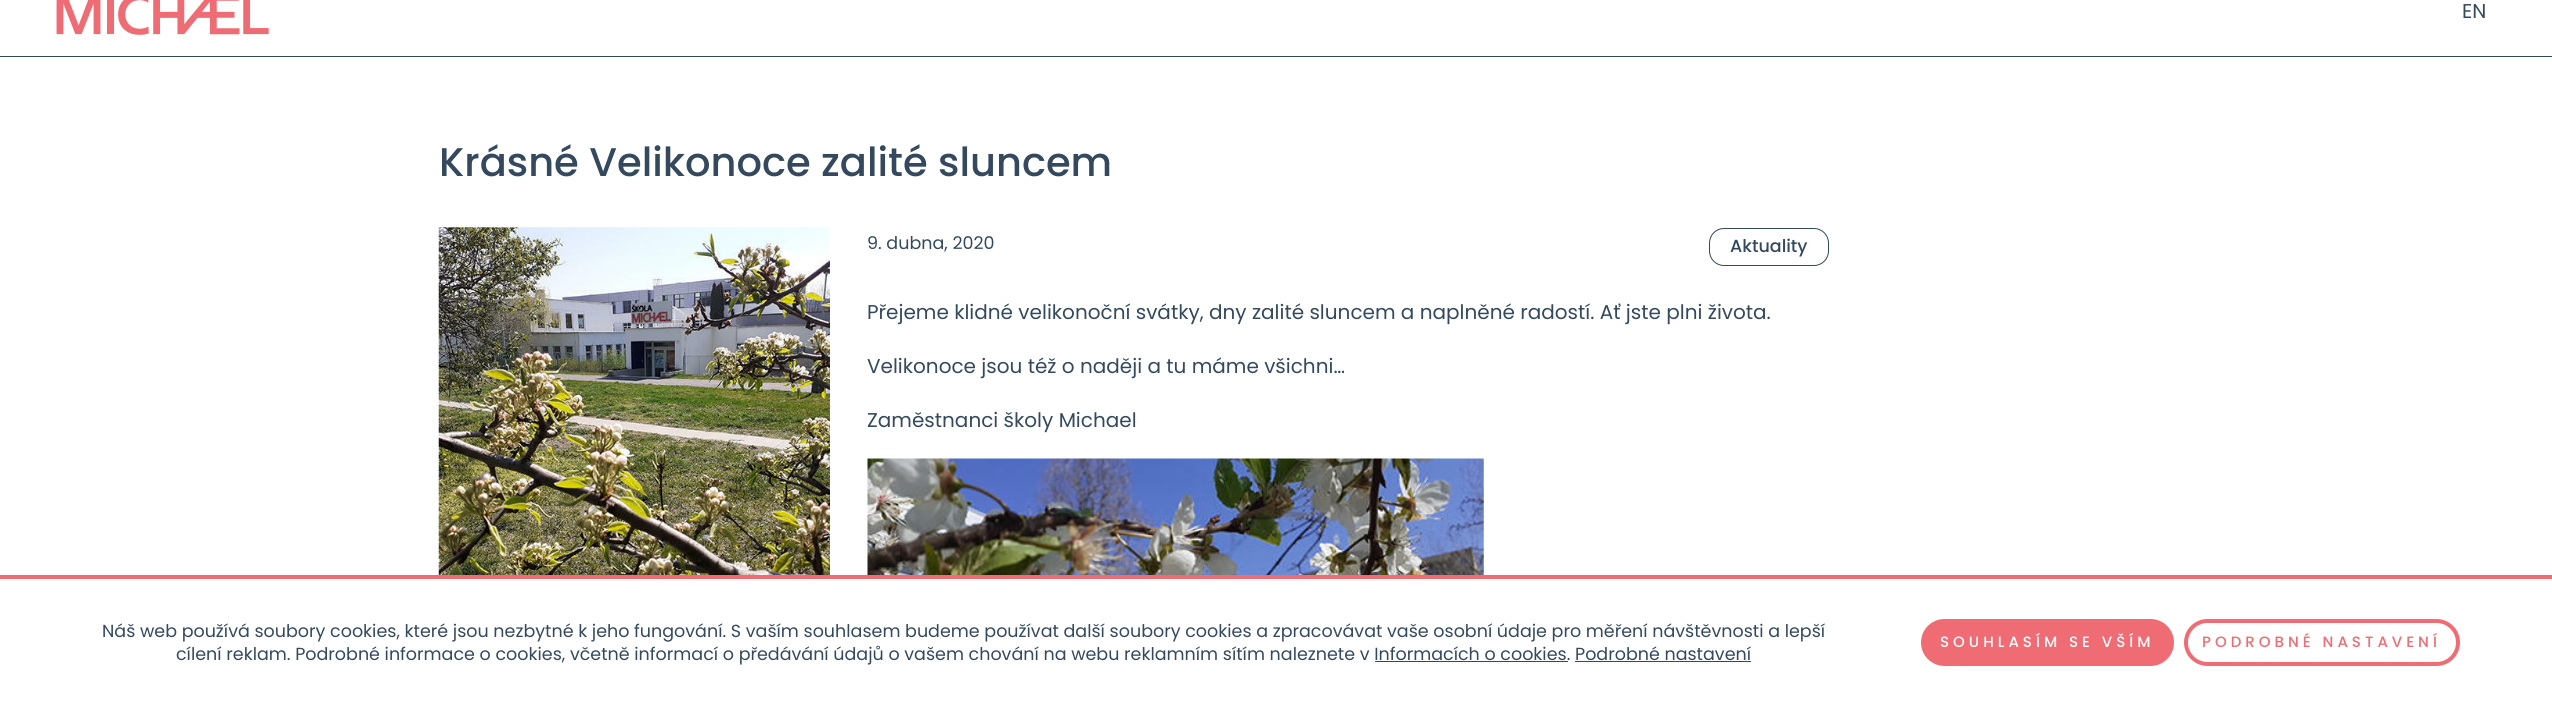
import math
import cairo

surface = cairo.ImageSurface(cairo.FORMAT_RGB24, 2552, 706)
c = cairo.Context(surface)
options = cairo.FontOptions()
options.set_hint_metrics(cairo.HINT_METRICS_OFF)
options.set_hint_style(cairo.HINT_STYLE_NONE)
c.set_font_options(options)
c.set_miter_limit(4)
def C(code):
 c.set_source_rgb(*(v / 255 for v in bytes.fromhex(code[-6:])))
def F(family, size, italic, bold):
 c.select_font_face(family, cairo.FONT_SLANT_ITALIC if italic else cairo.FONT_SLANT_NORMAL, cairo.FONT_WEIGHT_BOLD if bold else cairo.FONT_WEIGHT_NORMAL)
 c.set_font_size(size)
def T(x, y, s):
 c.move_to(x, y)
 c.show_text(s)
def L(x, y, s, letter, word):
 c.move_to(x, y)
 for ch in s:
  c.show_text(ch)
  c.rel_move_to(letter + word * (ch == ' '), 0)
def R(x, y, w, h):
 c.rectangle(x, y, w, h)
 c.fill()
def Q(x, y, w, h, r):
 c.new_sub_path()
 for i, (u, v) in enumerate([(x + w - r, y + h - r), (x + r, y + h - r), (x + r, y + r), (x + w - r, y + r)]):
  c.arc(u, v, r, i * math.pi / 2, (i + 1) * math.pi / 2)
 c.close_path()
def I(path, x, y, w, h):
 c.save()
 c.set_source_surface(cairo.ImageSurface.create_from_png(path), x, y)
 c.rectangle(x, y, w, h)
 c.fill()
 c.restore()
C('ffffff')
c.paint()
C('34495e')
R(0,56,2552,1)
I('1.png',56,0,213,35)
F('Poppins',20,0,0)
T(2462,18,'EN')
F('Poppins Medium',40,0,0)
T(439,176,'Krásné Velikonoce zalité sluncem')
I('2.png',438,227,392,348)
F('Poppins',17.5,0,0)
T(867,249,'9. dubna, 2020')
Q(1709.5,228.5,119,37,14.5)
c.set_line_width(1)
c.stroke()
F('Poppins Medium',17.5,0,0)
T(1730,252,'Aktuality')
F('Poppins',20,0,0)
T(867,319,'Přejeme klidné velikonoční svátky, dny zalité sluncem a naplněné radostí. Ať jste plni života.')
T(867,373,'Velikonoce jsou též o naději a tu máme všichni…')
T(867,427,'Zaměstnanci školy Michael')
I('3.png',867,458,617,117)
C('ef6c74')
R(0,575,2552,4)
F('Poppins',17.5,0,0)
C('34495e')
T(102,637,'Náš web používá soubory cookies, které jsou nezbytné k jeho fungování. S vaším souhlasem budeme používat další soubory cookies a zpracovávat vaše osobní údaje pro měření návštěvnosti a lepší')
T(176,660,'cílení reklam. Podrobné informace o cookies, včetně informací o předávání údajů o vašem chování na webu reklamním sítím naleznete v Informacích o cookies. Podrobné nastavení')
R(1375,661,193,1)
R(1575,661,176,1)
C('ef6c74')
Q(1923,621,249,43,21.5)
c.fill_preserve()
c.set_line_width(4)
c.stroke()
F('Poppins Medium',15,0,0)
C('ffffff')
L(1940,647,'SOUHLASÍM SE VŠÍM',4,0)
Q(2186,621,272,43,21.5)
C('ef6c74')
c.stroke()
L(2202,647,'PODROBNÉ NASTAVENÍ',4,0)
surface.write_to_png('o.png')
